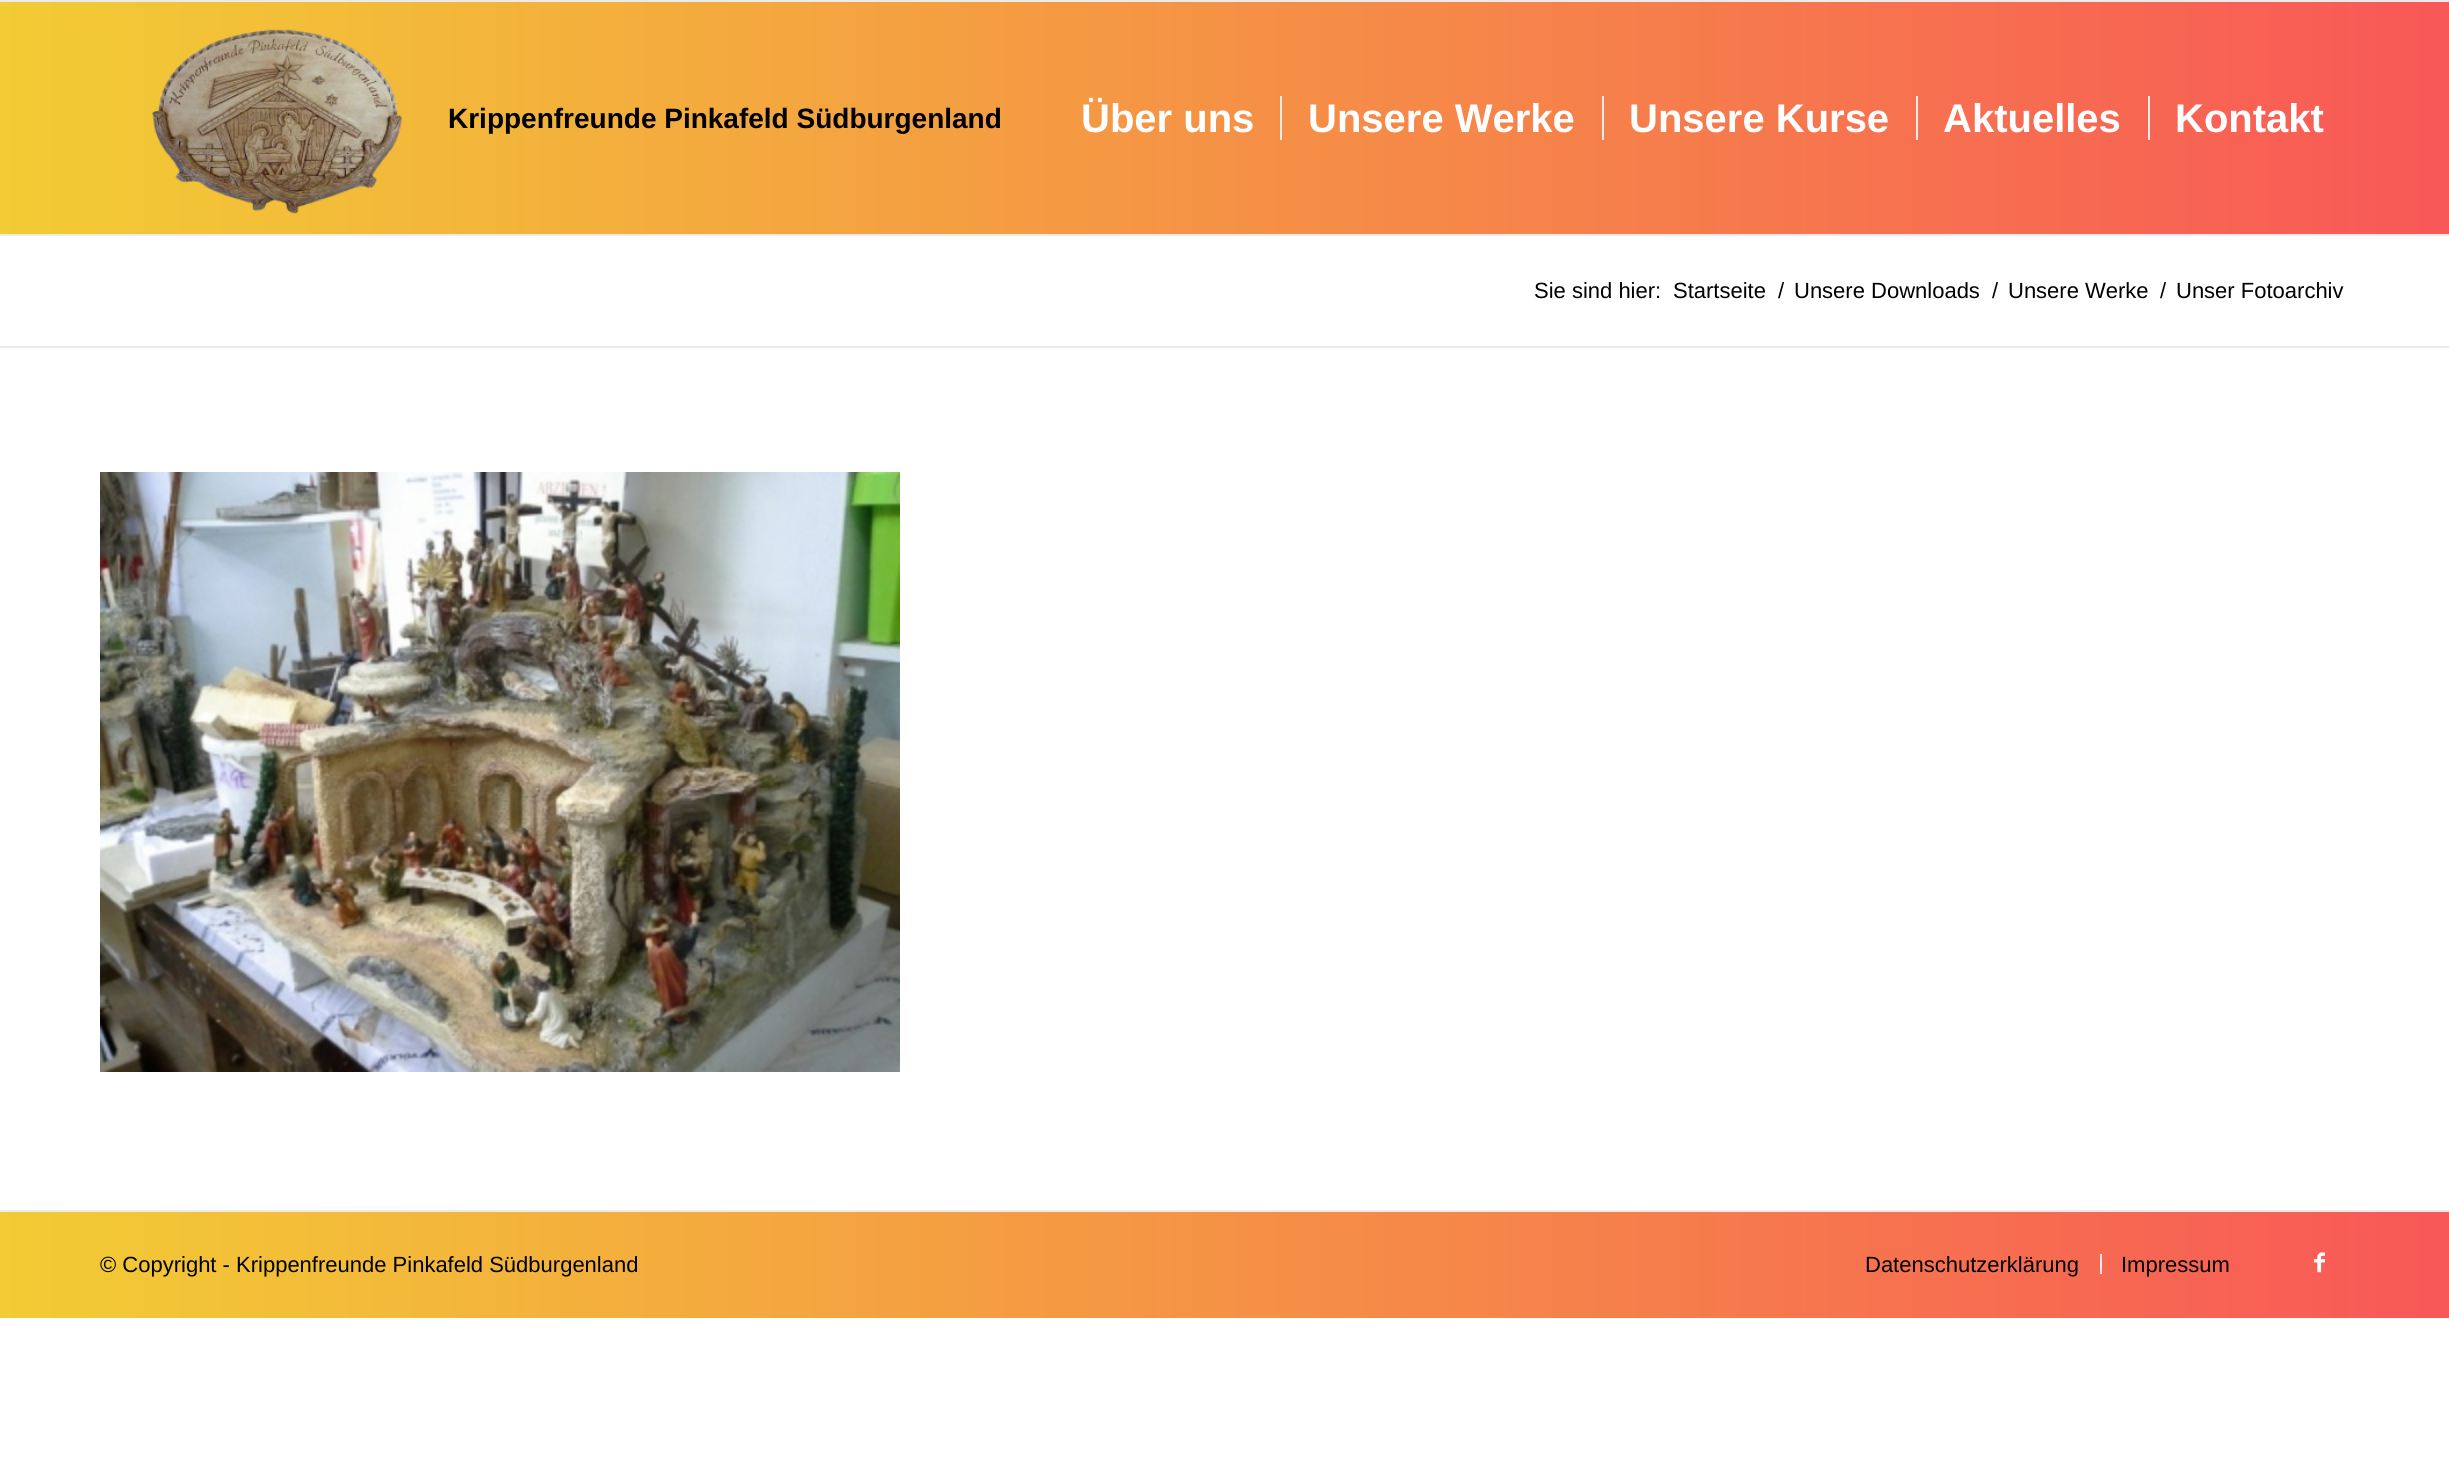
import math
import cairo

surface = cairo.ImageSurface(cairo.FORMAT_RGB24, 2449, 1466)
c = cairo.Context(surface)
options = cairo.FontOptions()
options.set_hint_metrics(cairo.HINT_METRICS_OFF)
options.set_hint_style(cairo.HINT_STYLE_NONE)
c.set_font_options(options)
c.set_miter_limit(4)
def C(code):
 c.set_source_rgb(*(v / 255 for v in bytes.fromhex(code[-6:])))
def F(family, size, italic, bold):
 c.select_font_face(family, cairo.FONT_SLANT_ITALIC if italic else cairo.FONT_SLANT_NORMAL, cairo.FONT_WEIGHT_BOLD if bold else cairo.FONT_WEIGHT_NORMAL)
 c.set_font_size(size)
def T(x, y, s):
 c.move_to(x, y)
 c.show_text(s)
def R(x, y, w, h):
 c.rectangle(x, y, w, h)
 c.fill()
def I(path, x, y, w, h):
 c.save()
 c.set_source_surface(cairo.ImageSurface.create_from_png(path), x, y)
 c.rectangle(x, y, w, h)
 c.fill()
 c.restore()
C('ffffff')
c.paint()
gradient = cairo.LinearGradient(0,118,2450,118)
gradient.add_color_stop_rgba(0,0.949,0.8,0.204,1)
gradient.add_color_stop_rgba(1,0.973,0.345,0.341,1)
c.set_source(gradient)
R(0,2,2449,232)
C('ebebeb')
R(0,0,2449,2)
R(0,234,2449,2)
I('1.png',152,29,250,185)
F('Liberation Sans',28,0,1)
C('000000')
T(448,128,'Krippenfreunde Pinkafeld Südburgenland')
F('Liberation Sans',40,0,1)
C('ffffff')
T(1081,132,'Über uns')
T(1308,132,'Unsere Werke')
C('ebebeb')
R(1280,96,2,44)
C('ffffff')
T(1629,132,'Unsere Kurse')
C('ebebeb')
R(1602,96,2,44)
C('ffffff')
T(1943,132,'Aktuelles')
C('ebebeb')
R(1916,96,2,44)
C('ffffff')
T(2175,132,'Kontakt')
C('ebebeb')
R(2148,96,2,44)
F('Liberation Sans',22,0,0)
C('000000')
T(1534,298,'Sie sind hier:')
T(1673,298,'Startseite')
T(1778,298,'/')
T(1794,298,'Unsere Downloads')
T(1992,298,'/')
T(2008,298,'Unsere Werke')
T(2160,298,'/')
T(2176,298,'Unser Fotoarchiv')
C('ebebeb')
R(0,346,2449,2)
I('2.png',100,472,800,600)
gradient = cairo.LinearGradient(0,1265,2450,1265)
gradient.add_color_stop_rgba(0,0.949,0.8,0.204,1)
gradient.add_color_stop_rgba(1,0.973,0.345,0.341,1)
c.set_source(gradient)
R(0,1212,2449,106)
C('ebebeb')
R(0,1210,2449,2)
C('000000')
T(100,1272,'© Copyright - Krippenfreunde Pinkafeld Südburgenland')
T(1865,1272,'Datenschutzerklärung')
C('ebebeb')
R(2100,1254,2,20)
C('000000')
T(2121,1272,'Impressum')
I('3.png',2314,1252,11,21)
surface.write_to_png('o.png')
